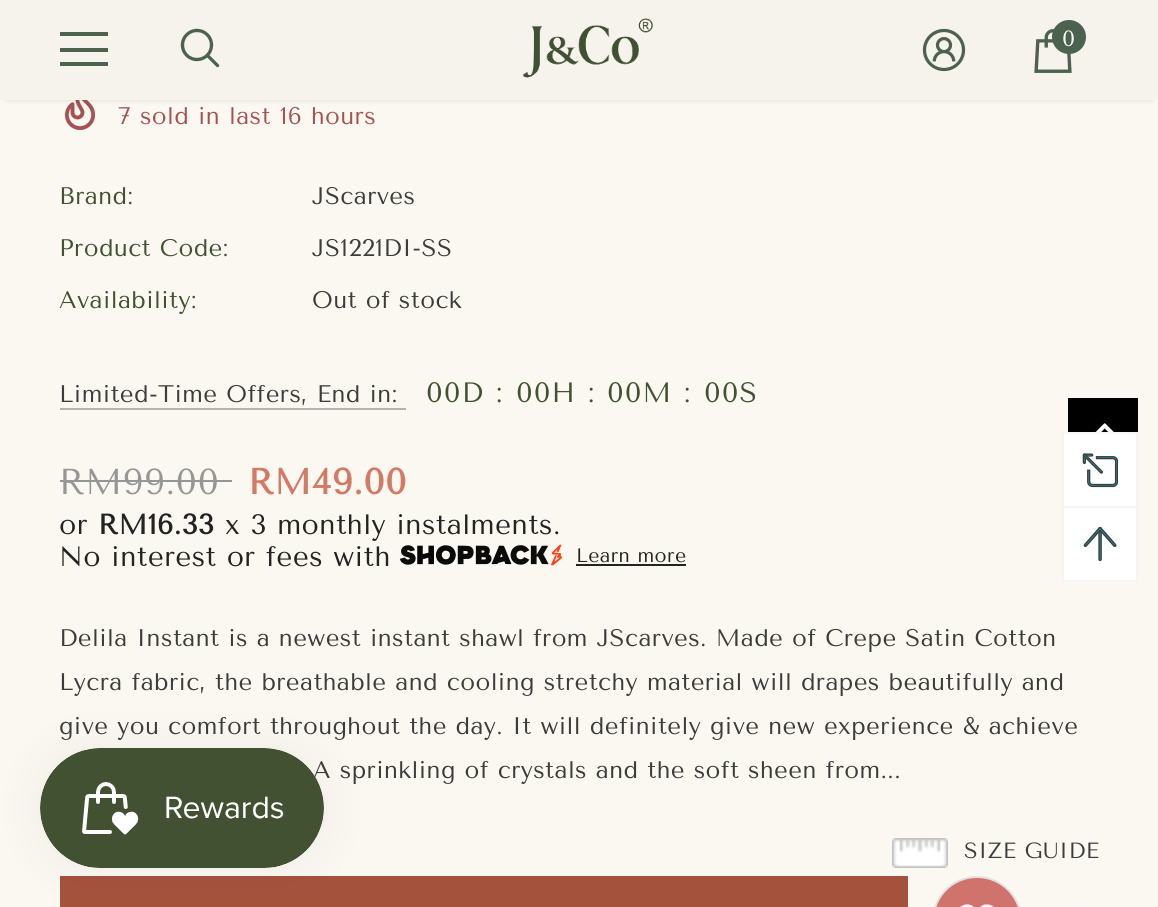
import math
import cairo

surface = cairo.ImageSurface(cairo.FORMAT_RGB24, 1158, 907)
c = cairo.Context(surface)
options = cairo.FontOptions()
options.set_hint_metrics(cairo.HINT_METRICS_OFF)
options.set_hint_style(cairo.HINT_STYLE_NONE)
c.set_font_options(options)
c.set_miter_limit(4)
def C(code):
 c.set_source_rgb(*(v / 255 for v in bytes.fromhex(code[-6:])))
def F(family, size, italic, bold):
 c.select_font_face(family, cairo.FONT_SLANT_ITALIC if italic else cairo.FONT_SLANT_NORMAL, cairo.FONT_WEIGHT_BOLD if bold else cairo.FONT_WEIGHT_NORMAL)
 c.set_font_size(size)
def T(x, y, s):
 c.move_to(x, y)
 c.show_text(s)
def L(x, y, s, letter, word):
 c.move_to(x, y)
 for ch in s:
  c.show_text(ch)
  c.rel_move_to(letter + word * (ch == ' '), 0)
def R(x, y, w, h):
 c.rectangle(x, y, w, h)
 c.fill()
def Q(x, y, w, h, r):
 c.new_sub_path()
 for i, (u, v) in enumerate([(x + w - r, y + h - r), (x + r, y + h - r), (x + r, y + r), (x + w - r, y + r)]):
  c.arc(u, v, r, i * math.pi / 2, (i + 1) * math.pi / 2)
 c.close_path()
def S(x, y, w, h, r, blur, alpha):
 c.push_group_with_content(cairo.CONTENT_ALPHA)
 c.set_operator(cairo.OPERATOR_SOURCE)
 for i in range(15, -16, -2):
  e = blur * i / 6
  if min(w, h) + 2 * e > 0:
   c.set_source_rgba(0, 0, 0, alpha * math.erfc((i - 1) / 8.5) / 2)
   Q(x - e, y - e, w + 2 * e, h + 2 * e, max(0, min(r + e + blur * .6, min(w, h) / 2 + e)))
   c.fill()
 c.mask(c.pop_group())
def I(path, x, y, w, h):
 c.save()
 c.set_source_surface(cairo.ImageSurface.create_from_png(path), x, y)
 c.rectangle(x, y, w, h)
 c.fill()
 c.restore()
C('fbf8f1')
c.paint()
I('5.png',64,100,31,30)
C('000000')
S(6,12,1146,88,0,3,.12)
C('f6f3ed')
R(0,0,1158,100)
C('4c624f')
R(60,32,48,4)
R(60,48,48,4)
R(60,62,48,4)
I('1.png',180,28,40,40)
I('2.png',522,18,132,60)
I('3.png',922,28,44,44)
I('4.png',1034,29,38,44)
c.arc(1069,37,17,0,2 * math.pi)
c.fill()
F('Tenor Sans',22,0,0)
C('f8f8f8')
T(1062,46,'0')
F('Tenor Sans',24,0,0)
C('a55252')
L(118,124,'7 sold in last 16 hours',.4,0)
C('415132')
L(59,204,'Brand:',.4,0)
C('3c3c3c')
L(312,204,'JScarves',.4,0)
C('415132')
L(59,256,'Product Code:',.4,0)
C('3c3c3c')
L(312,256,'JS1221DI-SS',.4,0)
C('415132')
L(59,308,'Availability:',.4,0)
C('3c3c3c')
L(312,308,'Out of stock',.4,0)
L(59,402,'Limited-Time Offers, End in:',.4,0)
C('b3b3b3')
R(60,408,346,2)
F('Tenor Sans',28,0,0)
C('415132')
L(426,402,'00D',1,0)
L(496,402,':',1,0)
L(516,402,'00H',1,0)
L(588,402,':',1,0)
L(607,402,'00M',1,0)
L(684,402,':',1,0)
L(704,402,'00S',1,0)
F('Tenor Sans',36,0,0)
C('969696')
L(59,494,'RM99.00',.4,0)
R(60,480,172,2)
F('Tenor Sans',36,0,1)
C('d47965')
L(248,494,'RM49.00',.4,0)
F('Tenor Sans',28,0,0)
C('232323')
L(59,534,'or',.4,0)
F('Tenor Sans',28,0,1)
L(98,534,'RM16.33',.4,0)
F('Tenor Sans',28,0,0)
L(225,534,'x 3 monthly instalments.',.4,0)
L(59,566,'No interest or fees with',.4,0)
I('6.png',400,544,162,22)
F('Tenor Sans',19.5,0,0)
L(576,562,'Learn more',.4,0)
R(576,564,110,2)
F('Tenor Sans',24,0,0)
C('3c3c3c')
L(59,646,'Delila Instant is a newest instant shawl from JScarves. Made of Crepe Satin Cotton',.4,0)
L(59,690,'Lycra fabric, the breathable and cooling stretchy material will drapes beautifully and',.4,0)
L(59,734,'give you comfort throughout the day. It will definitely give new experience & achieve',.4,0)
L(313,778,'A sprinkling of crystals and the soft sheen from...',.4,0)
I('7.png',892,838,56,30)
F('Tenor Sans',22,0,0)
L(964,858,'SIZE GUIDE',.4,0)
C('a5523d')
R(60,876,848,31)
C('cf736c')
Q(933,877,88,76,44)
c.fill_preserve()
C('e1e1e1')
c.stroke()
I('8.png',960,904,34,3)
I('9.png',1074,902,14,5)
C('000000')
R(1068,398,70,34)
I('10.png',1095,423,19,9)
C('ffffff')
R(1064,434,72,146)
C('f5f5f6')
R(1062,432,76,2)
R(1136,432,2,74)
R(1062,432,2,74)
I('11.png',1082,453,36,35)
c.rectangle(1063,507,74,74)
c.stroke()
I('12.png',1083,526,34,36)
C('000000')
S(40,748,284,120,60,25,.05)
I('13.png',40,748,284,120)
surface.write_to_png('o.png')
